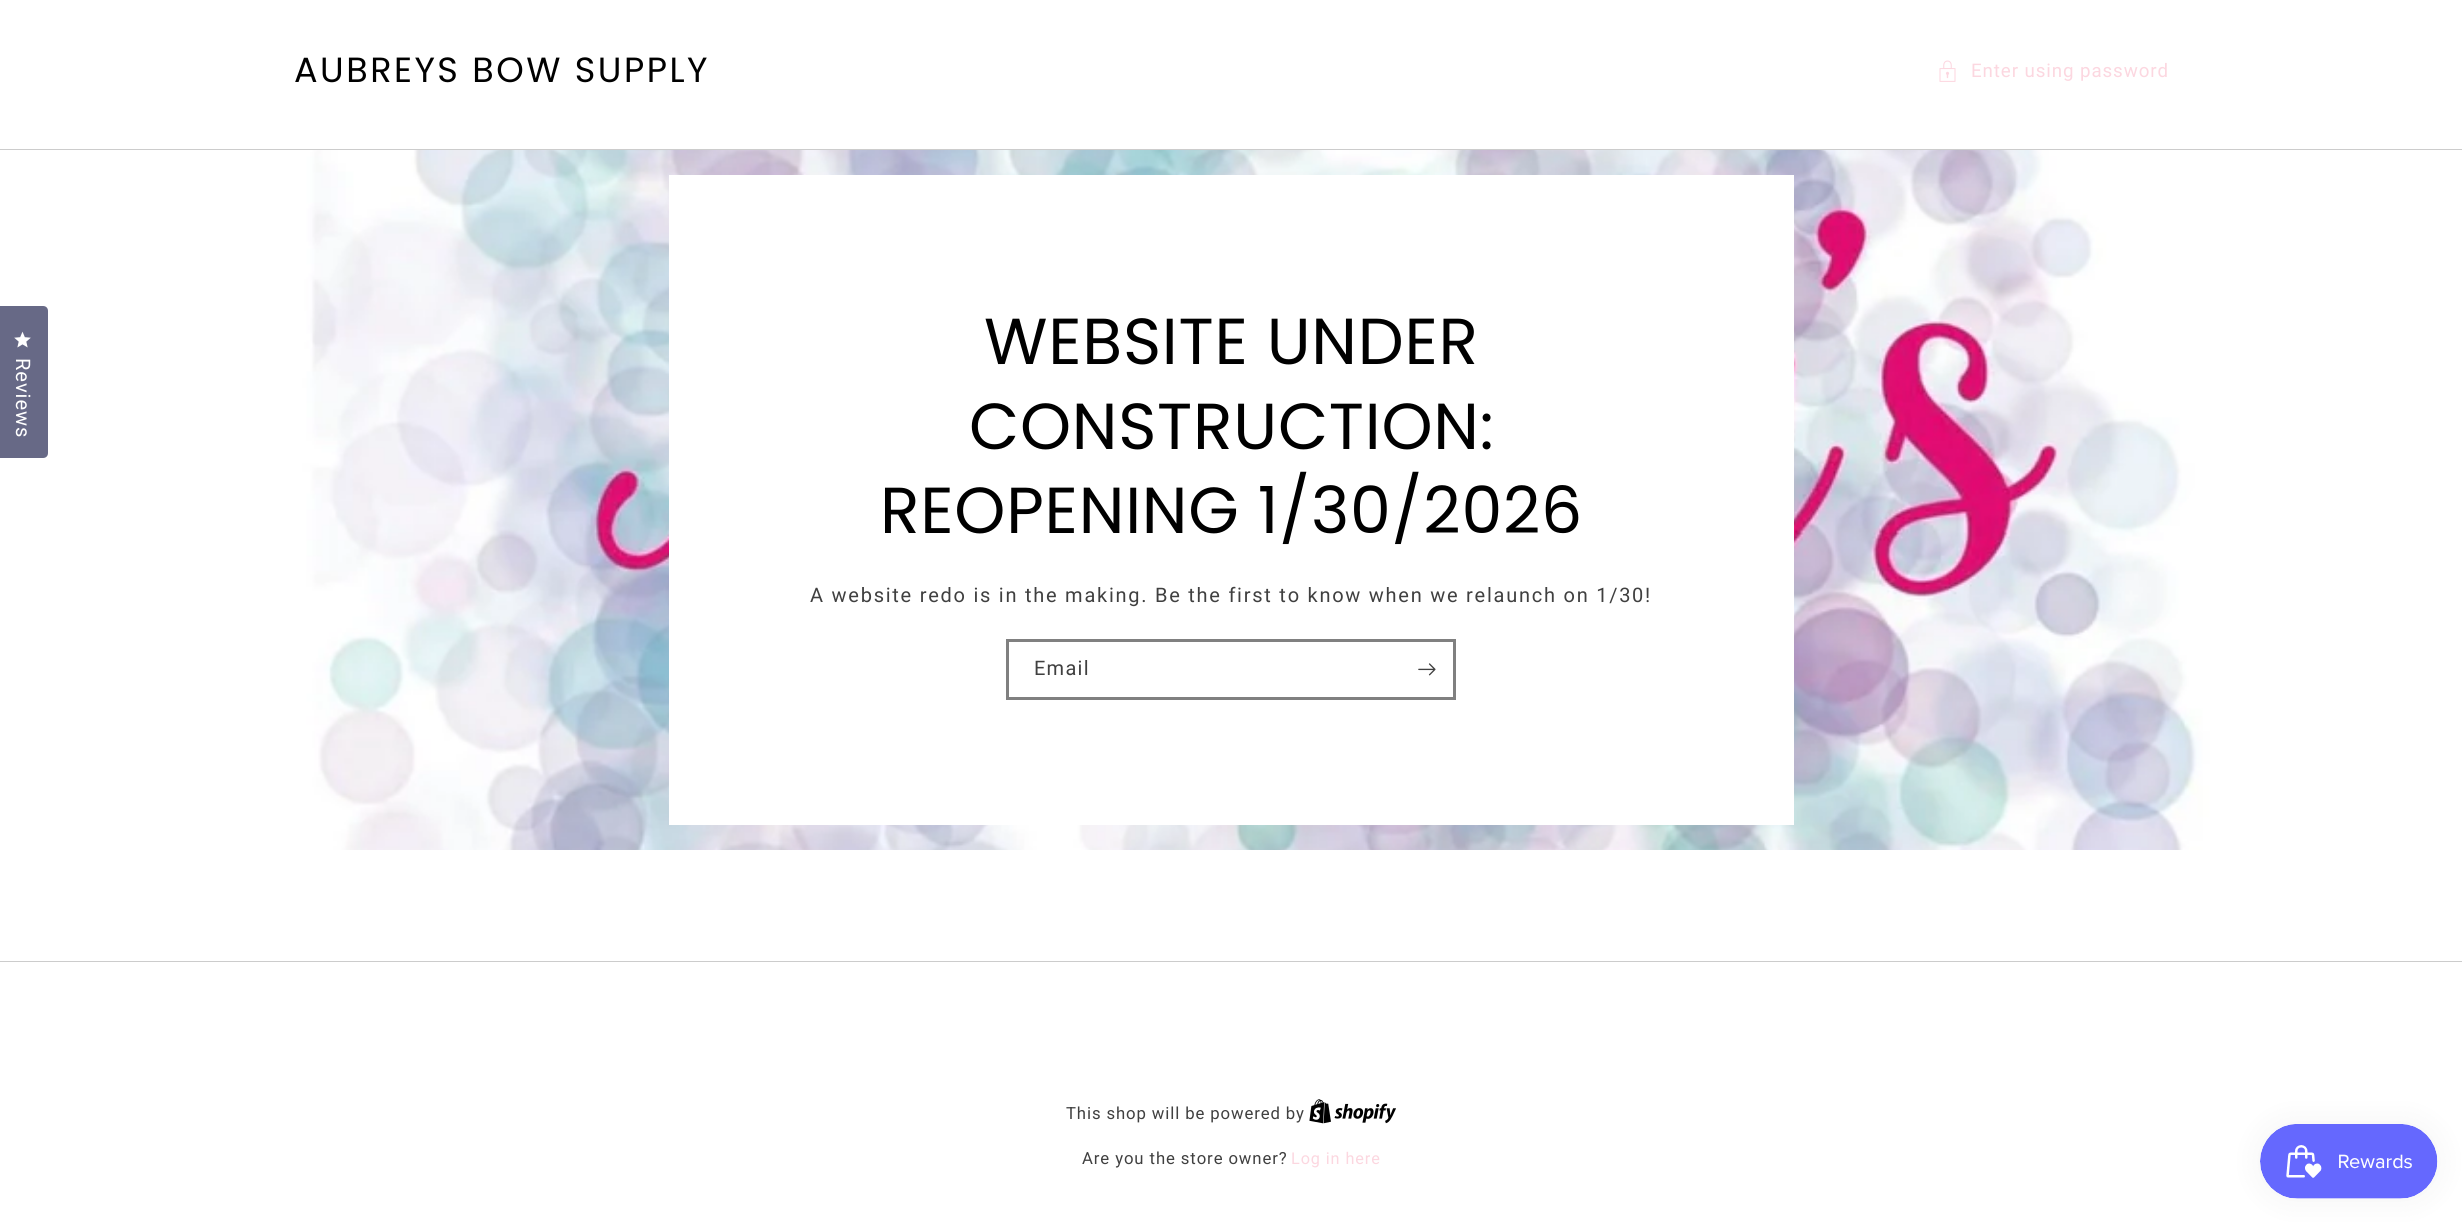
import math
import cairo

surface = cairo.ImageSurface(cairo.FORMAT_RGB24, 2462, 1223)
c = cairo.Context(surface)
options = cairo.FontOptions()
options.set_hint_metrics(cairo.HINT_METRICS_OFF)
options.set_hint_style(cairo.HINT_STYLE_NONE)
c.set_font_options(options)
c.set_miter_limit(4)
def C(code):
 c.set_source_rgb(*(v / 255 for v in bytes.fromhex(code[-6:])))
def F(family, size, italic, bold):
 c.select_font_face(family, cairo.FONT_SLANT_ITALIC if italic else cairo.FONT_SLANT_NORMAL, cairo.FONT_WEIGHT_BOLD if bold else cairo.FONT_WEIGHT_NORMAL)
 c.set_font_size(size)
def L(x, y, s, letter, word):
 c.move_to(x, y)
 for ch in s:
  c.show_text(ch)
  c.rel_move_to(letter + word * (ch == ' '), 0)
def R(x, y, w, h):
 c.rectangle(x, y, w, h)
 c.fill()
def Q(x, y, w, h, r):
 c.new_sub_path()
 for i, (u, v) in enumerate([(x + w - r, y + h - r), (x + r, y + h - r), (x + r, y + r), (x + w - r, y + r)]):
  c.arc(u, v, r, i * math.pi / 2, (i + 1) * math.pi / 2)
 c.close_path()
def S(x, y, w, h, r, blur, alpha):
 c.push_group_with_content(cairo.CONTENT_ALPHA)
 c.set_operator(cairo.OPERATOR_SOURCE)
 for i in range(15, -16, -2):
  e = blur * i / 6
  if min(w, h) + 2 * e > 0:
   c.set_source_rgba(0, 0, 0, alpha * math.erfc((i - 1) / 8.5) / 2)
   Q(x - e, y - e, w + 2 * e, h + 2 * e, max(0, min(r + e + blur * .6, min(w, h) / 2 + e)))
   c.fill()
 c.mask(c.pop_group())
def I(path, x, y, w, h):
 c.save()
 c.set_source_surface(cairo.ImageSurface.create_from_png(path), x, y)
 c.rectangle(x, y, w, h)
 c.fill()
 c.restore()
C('ffffff')
c.paint()
F('Poppins',35,0,0)
C('000000')
L(294,82,'AUBREYS BOW SUPPLY',2.5,0)
I('1.png',1939,60,17,22)
F('Roboto',18.75,0,0)
C('fcd7e0')
L(1971,77,'Enter using password',.9,0)
C('cccccc')
R(0,149,2462,1)
I('3.png',0,150,2462,700)
C('676986')
c.new_path()
c.move_to(-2,306)
c.line_to(43,306)
c.curve_to(46,306,48,308,48,311)
c.line_to(48,453)
c.curve_to(48,456,46,458,43,458)
c.line_to(-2,458)
c.close_path()
c.fill()
I('2.png',14,331,17,17)
F('Roboto',20,0,0)
C('ffffff')
c.save()
c.translate(16,358)
c.rotate(90.1 * math.pi / 180)
L(0,0,'Reviews',1,0)
c.restore()
R(669,175,1125,650)
F('Poppins',65,0,0)
C('000000')
L(984,364,'WEBSITE UNDER',.75,0)
L(969,449,'CONSTRUCTION:',.75,0)
L(880,533,'REOPENING 1/30/2026',.75,0)
F('Roboto',20,0,0)
C('404040')
L(810,602,'A website redo is in the making. Be the first to know when we relaunch on 1/30!',1.75,0)
c.rectangle(1007.5,640.5,447,58)
C('808080')
c.set_line_width(3)
c.stroke()
C('404040')
L(1034,675,'Email',1.25,0)
I('4.png',1418,663,18,13)
C('cccccc')
R(0,961,2462,1)
F('Roboto',16.7,0,0)
C('404040')
L(1066,1119,'This shop will be powered by',.9,0)
I('5.png',1309,1099,87,25)
L(1082,1164,'Are you the store owner?',.9,0)
F('Roboto',16.25,0,0)
C('fcd7e0')
L(1291,1164,'Log in here',.9,0)
C('000000')
S(2260,1124,178,75,37.5,15.5,.05)
I('6.png',2260,1124,178,75)
surface.write_to_png('o.png')
